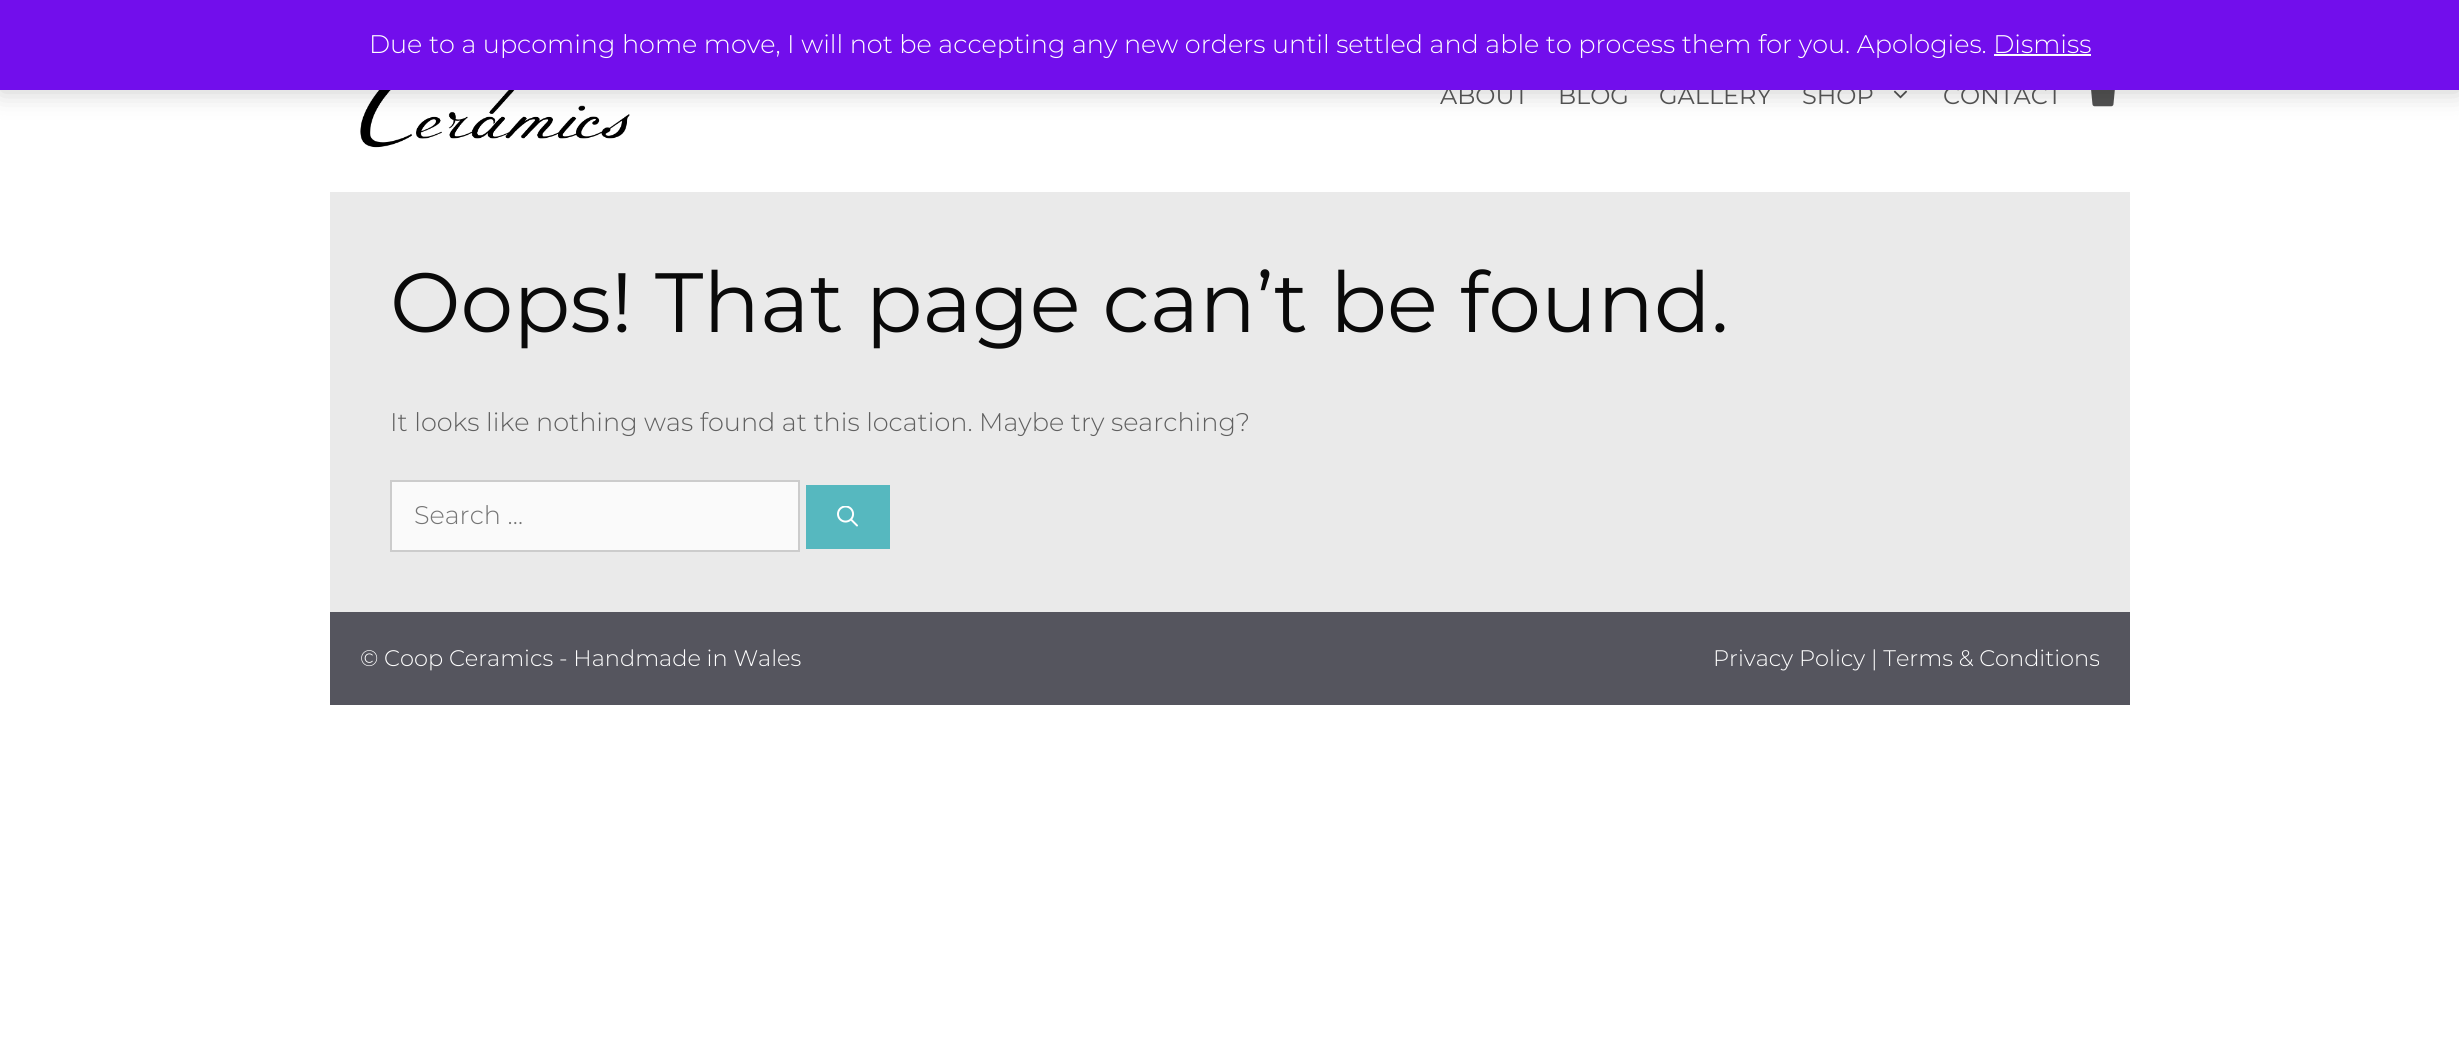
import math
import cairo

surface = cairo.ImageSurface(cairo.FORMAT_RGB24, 2459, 1045)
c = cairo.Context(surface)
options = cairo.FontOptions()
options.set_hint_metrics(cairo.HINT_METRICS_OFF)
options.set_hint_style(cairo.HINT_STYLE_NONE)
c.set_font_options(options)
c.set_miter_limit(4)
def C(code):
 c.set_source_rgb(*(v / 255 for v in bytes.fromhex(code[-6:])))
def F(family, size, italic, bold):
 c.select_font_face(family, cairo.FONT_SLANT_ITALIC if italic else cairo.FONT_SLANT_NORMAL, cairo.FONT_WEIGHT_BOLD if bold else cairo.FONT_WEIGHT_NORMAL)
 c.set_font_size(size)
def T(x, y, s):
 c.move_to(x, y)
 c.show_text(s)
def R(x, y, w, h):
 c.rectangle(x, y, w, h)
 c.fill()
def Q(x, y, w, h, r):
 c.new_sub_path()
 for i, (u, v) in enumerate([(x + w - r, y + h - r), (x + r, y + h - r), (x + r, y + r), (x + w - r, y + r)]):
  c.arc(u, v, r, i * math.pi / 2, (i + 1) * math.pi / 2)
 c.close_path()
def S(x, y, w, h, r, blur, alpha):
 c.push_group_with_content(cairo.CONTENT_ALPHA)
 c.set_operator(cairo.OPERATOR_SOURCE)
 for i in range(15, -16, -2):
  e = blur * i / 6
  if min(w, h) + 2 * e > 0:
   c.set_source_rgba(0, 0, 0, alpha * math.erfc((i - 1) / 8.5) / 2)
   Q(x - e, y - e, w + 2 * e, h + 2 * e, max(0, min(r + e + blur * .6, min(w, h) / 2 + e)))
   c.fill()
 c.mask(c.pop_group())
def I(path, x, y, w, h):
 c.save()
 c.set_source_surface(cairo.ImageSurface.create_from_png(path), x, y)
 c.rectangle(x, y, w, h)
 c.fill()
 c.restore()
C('ffffff')
c.paint()
I('1.png',360,90,270,58)
I('2.png',1893,90,15,9)
I('3.png',2091,90,24,17)
C('000000')
S(0,2,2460,90,0,13,.2)
F('Montserrat',24,0,0)
C('515151')
T(1440,104,'ABOUT')
T(1558,104,'BLOG')
T(1659,104,'GALLERY')
T(1802,104,'SHOP')
T(1943,104,'CONTACT')
C('720eec')
R(0,0,2459,90)
F('Montserrat Light',25.5,0,0)
C('ffffff')
T(369,53,'Due to a upcoming home move, I will not be accepting any new orders until settled and able to process them for you. Apologies. Dismiss')
C('fcfbfe')
R(1994,54,97,2)
C('eaeaea')
R(330,192,1800,420)
F('Montserrat',84,0,0)
C('0a0a0a')
T(390,332,'Oops! That page can’t be found.')
F('Montserrat Light',25.5,0,0)
C('606060')
T(390,431,'It looks like nothing was found at this location. Maybe try searching?')
C('fafafa')
c.rectangle(391,481,408,70)
c.fill_preserve()
C('cccccc')
c.stroke()
C('757575')
T(414,524,'Search …')
C('56b8bf')
R(806,485,84,64)
I('4.png',837,506,21,21)
C('55555e')
R(330,612,1800,93)
F('Montserrat Light',22.5,0,0)
C('ffffff')
T(360,666,'© Coop Ceramics - Handmade in Wales')
T(1713,666,'Privacy Policy | Terms & Conditions')
surface.write_to_png('o.png')
